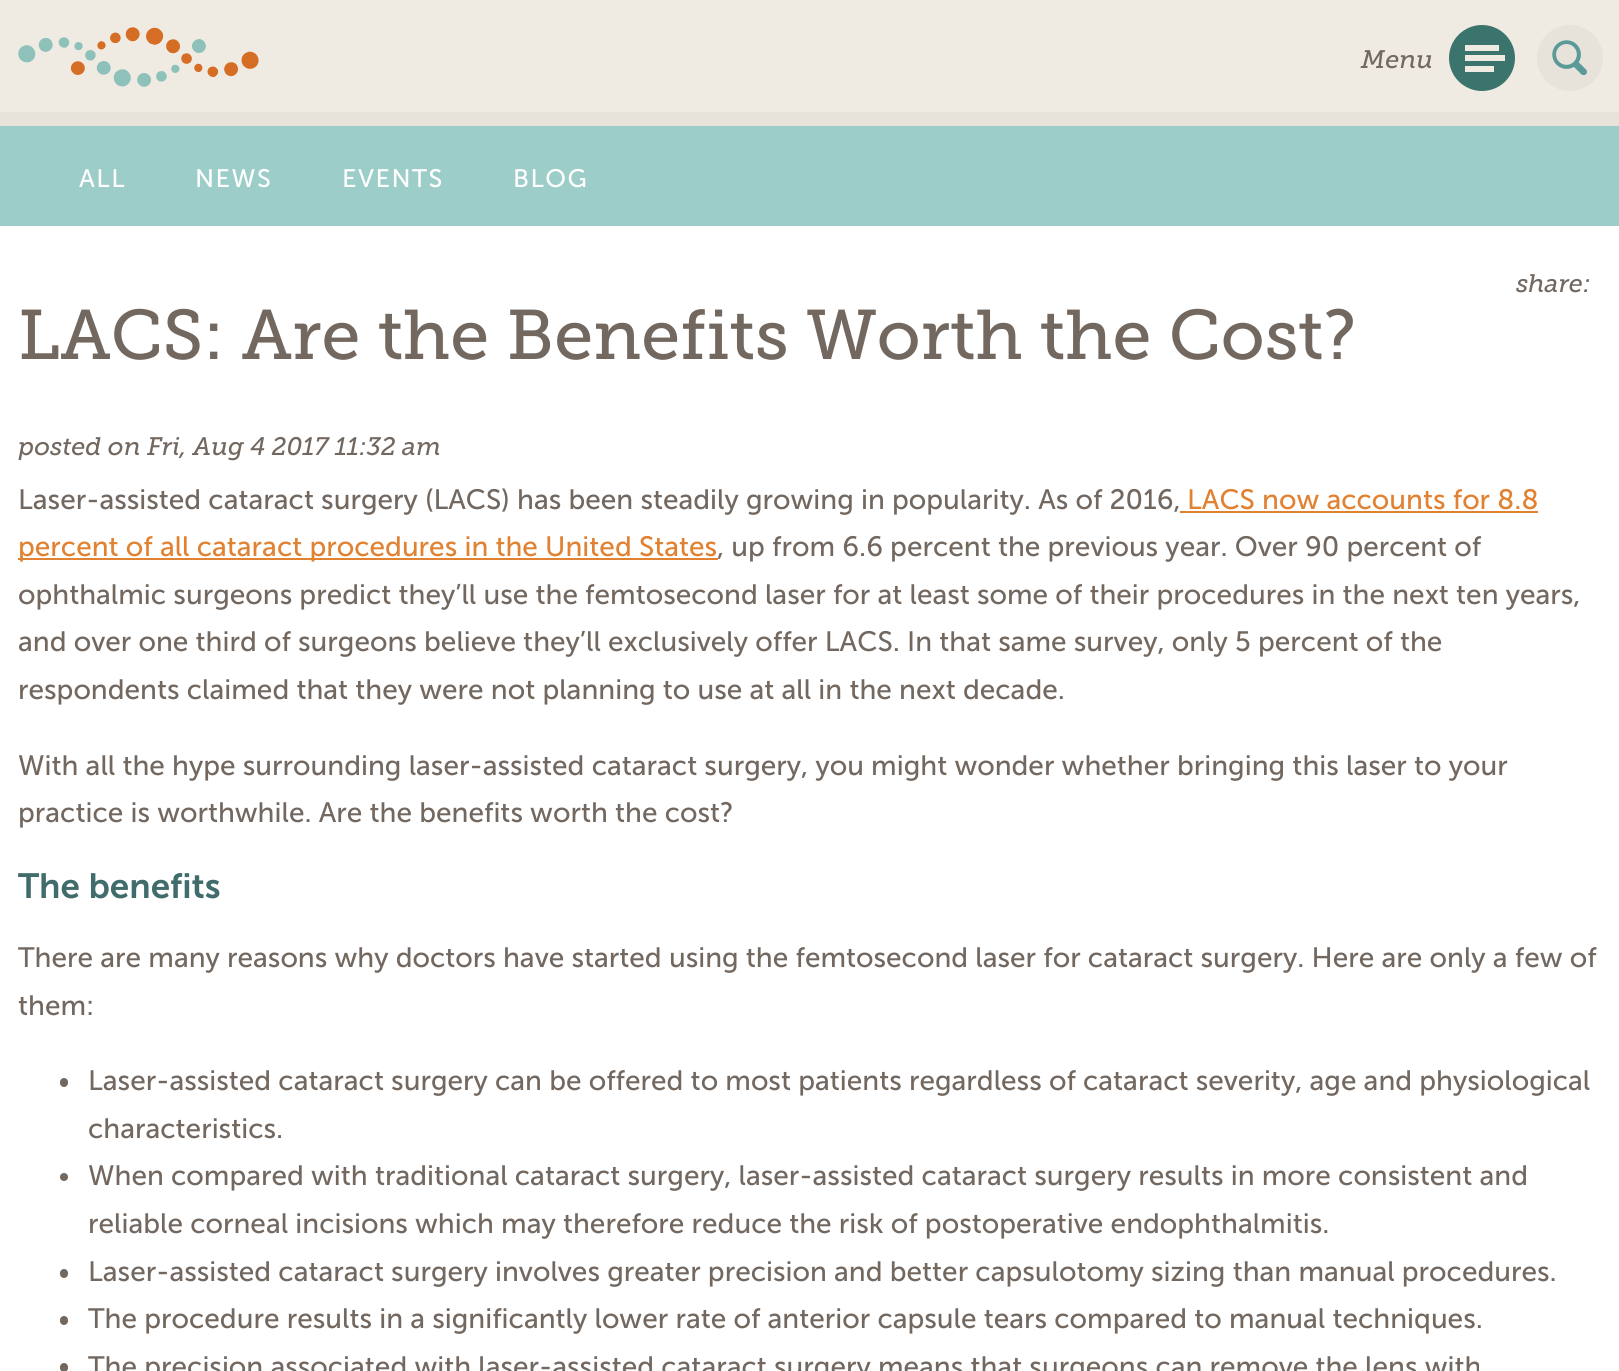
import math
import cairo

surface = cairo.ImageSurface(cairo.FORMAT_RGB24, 1619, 1371)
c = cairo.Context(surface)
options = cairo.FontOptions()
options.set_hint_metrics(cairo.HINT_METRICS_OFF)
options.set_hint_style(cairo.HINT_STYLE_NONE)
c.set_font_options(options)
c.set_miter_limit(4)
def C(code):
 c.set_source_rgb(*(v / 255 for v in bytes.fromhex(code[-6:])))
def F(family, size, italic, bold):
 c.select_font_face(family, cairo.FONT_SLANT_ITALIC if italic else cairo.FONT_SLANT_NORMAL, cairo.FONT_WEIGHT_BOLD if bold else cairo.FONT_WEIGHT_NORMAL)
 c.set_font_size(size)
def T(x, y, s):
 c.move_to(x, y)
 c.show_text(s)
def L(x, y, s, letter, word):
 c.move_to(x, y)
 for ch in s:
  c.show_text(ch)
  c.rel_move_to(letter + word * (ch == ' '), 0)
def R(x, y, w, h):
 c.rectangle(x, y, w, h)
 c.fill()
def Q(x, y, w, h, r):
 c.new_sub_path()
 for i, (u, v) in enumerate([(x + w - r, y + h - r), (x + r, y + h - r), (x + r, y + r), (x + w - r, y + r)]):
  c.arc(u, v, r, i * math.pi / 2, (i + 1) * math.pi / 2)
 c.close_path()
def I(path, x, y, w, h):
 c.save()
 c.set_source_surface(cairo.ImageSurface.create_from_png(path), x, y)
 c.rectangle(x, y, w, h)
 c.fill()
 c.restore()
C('ffffff')
c.paint()
C('efeae2')
R(0,0,1619,112)
C('e7e2da')
R(0,112,1619,14)
I('1.png',18,27,241,60)
F('Museo Slab',25.25,1,0)
C('726860')
T(1361,68,'Menu')
C('3b736d')
c.new_path()
c.arc(1482,58,33,0,2 * math.pi)
c.fill()
C('efeae2')
R(1465,45,34,6)
R(1465,55,40,6)
R(1465,66,29,6)
C('e7e2da')
c.arc(1570,58,33,0,2 * math.pi)
c.fill()
I('2.png',1552,40,35,35)
C('9dcdc8')
R(0,126,1619,100)
F('Museo Sans',25.25,0,0)
C('ffffff')
L(79,187,'ALL',1.5,0)
L(195,187,'NEWS',1.5,0)
L(342,187,'EVENTS',1.5,0)
L(513,187,'BLOG',1.5,0)
F('Museo Slab',25.25,1,0)
C('726860')
T(1516,292,'share:')
F('Museo Slab',70,0,0)
T(18,359,'LACS: Are the Benefits Worth the Cost?')
F('Museo Slab',25.25,1,0)
T(18,455,'posted on Fri, Aug 4 2017 11:32 am')
F('Museo Sans',28,0,0)
T(18,509,'Laser-assisted cataract surgery (LACS) has been steadily growing in popularity. As of 2016,')
C('e18232')
T(1187,509,'LACS now accounts for 8.8')
R(1180,511,358,2)
R(18,558,700,2)
T(18,556,'percent of all cataract procedures in the United States')
C('726860')
T(717,556,', up from 6.6 percent the previous year. Over 90 percent of')
T(18,604,'ophthalmic surgeons predict they’ll use the femtosecond laser for at least some of their procedures in the next ten years,')
T(18,651,'and over one third of surgeons believe they’ll exclusively offer LACS. In that same survey, only 5 percent of the')
T(18,699,'respondents claimed that they were not planning to use at all in the next decade.')
T(18,775,'With all the hype surrounding laser-assisted cataract surgery, you might wonder whether bringing this laser to your')
T(18,822,'practice is worthwhile. Are the benefits worth the cost?')
F('Museo Sans SemiBold',35,0,0)
C('406c6b')
T(18,898,'The benefits')
F('Museo Sans',28,0,0)
C('726860')
T(18,967,'There are many reasons why doctors have started using the femtosecond laser for cataract surgery. Here are only a few of')
T(18,1015,'them:')
Q(60,1078,8,9,4)
c.fill()
T(88,1090,'Laser-assisted cataract surgery can be offered to most patients regardless of cataract severity, age and physiological')
T(88,1138,'characteristics.')
c.new_path()
c.arc(64,1177,4,0,2 * math.pi)
c.fill()
T(88,1185,'When compared with traditional cataract surgery, laser-assisted cataract surgery results in more consistent and')
T(88,1233,'reliable corneal incisions which may therefore reduce the risk of postoperative endophthalmitis.')
Q(60,1269,8,9,4)
c.fill()
T(88,1281,'Laser-assisted cataract surgery involves greater precision and better capsulotomy sizing than manual procedures.')
Q(60,1316,8,9,4)
c.fill()
T(88,1328,'The procedure results in a significantly lower rate of anterior capsule tears compared to manual techniques.')
Q(60,1363,8,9,4)
c.fill()
T(88,1376,'The precision associated with laser-assisted cataract surgery means that surgeons can remove the lens with')
surface.write_to_png('o.png')
